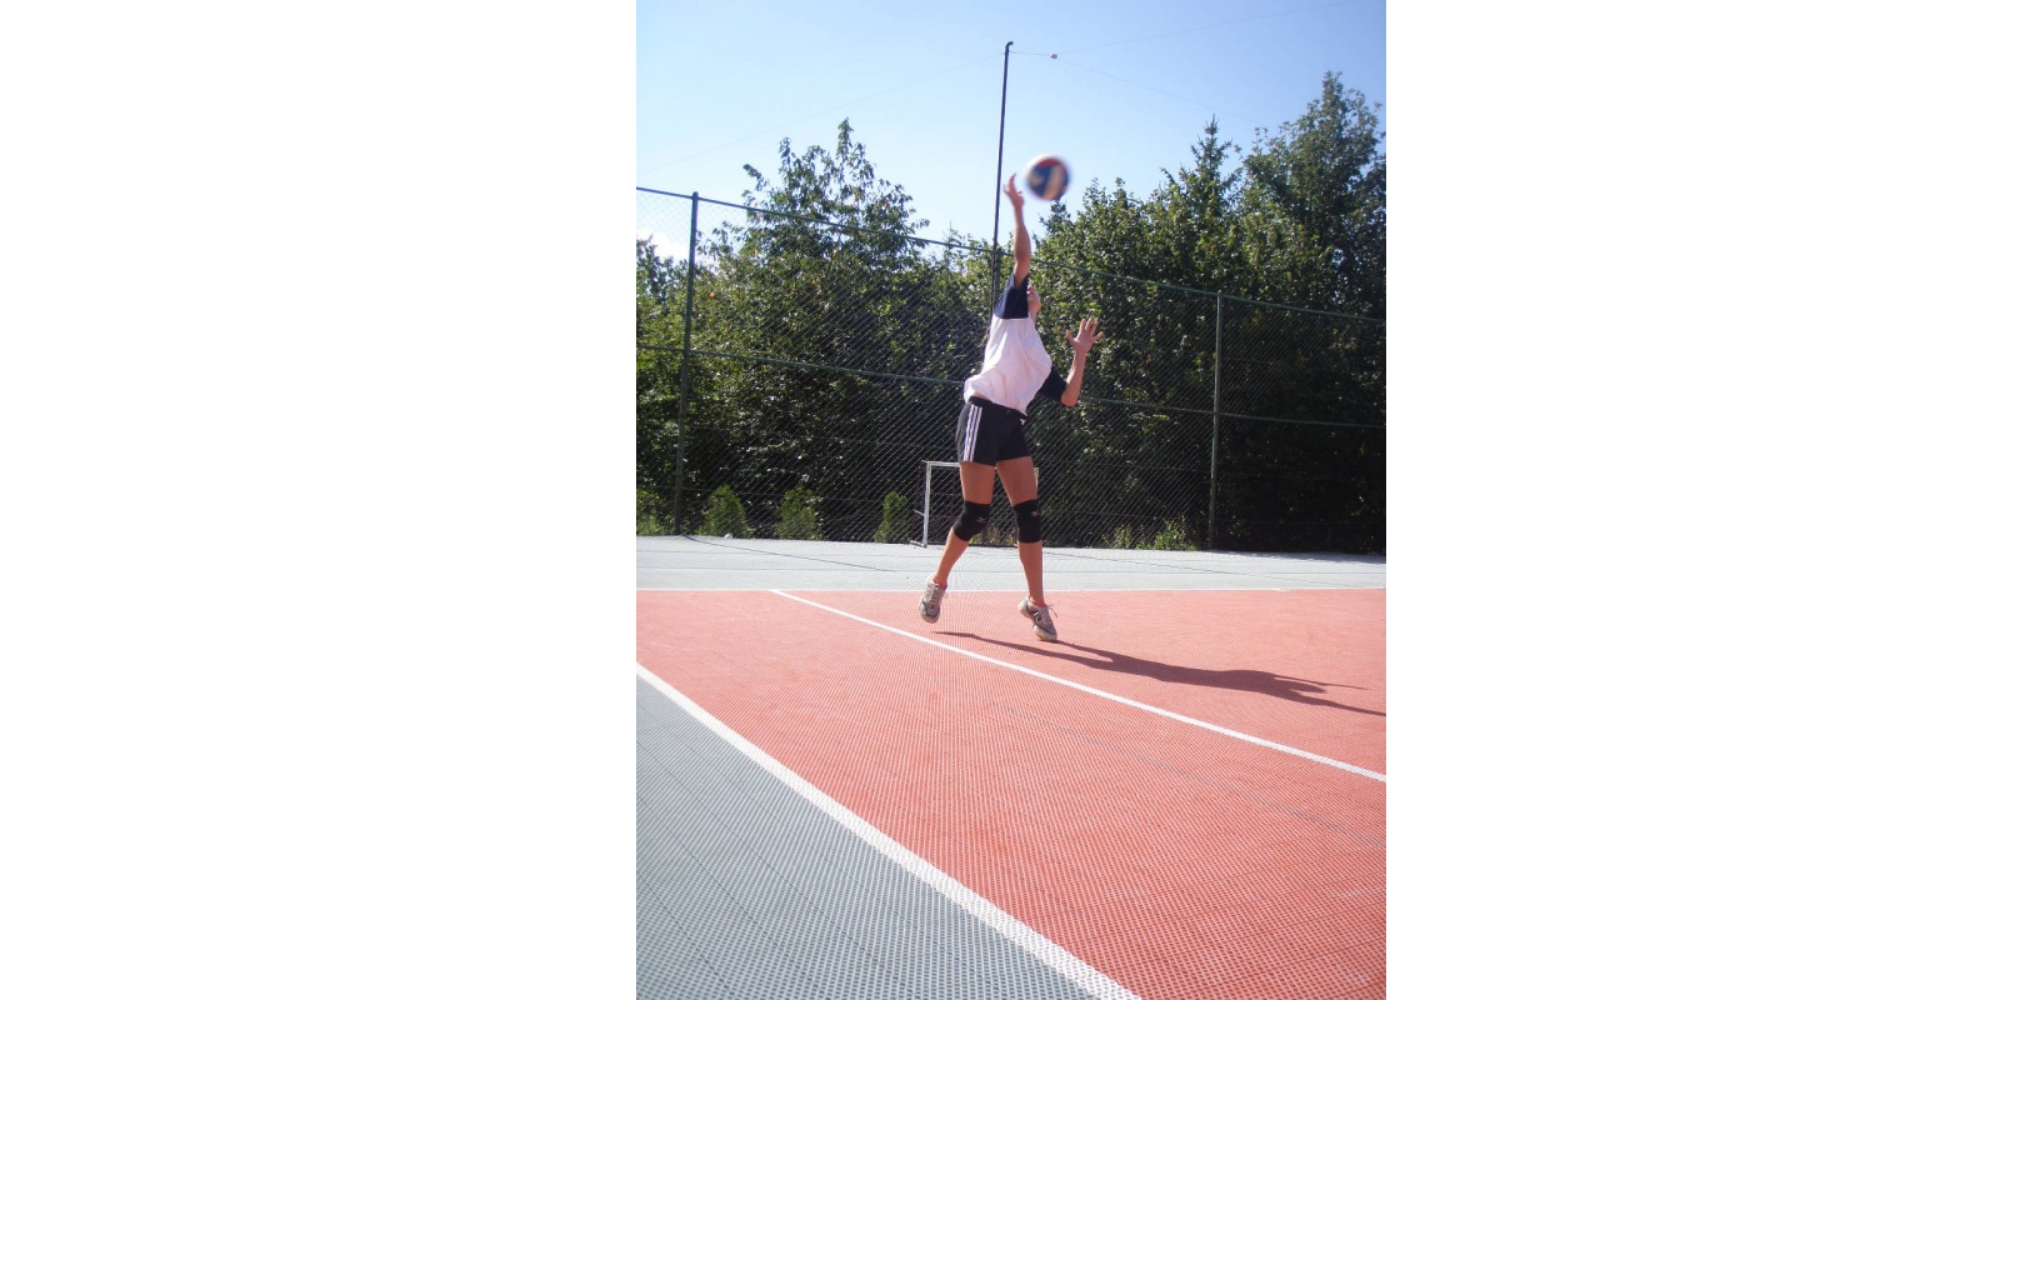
import math
import cairo

surface = cairo.ImageSurface(cairo.FORMAT_RGB24, 2021, 1281)
c = cairo.Context(surface)
options = cairo.FontOptions()
options.set_hint_metrics(cairo.HINT_METRICS_OFF)
options.set_hint_style(cairo.HINT_STYLE_NONE)
c.set_font_options(options)
c.set_miter_limit(4)
def C(code):
 c.set_source_rgb(*(v / 255 for v in bytes.fromhex(code[-6:])))
def I(path, x, y, w, h):
 c.save()
 c.set_source_surface(cairo.ImageSurface.create_from_png(path), x, y)
 c.rectangle(x, y, w, h)
 c.fill()
 c.restore()
C('ffffff')
c.paint()
I('1.png',636,0,751,1000)
surface.write_to_png('o.png')
